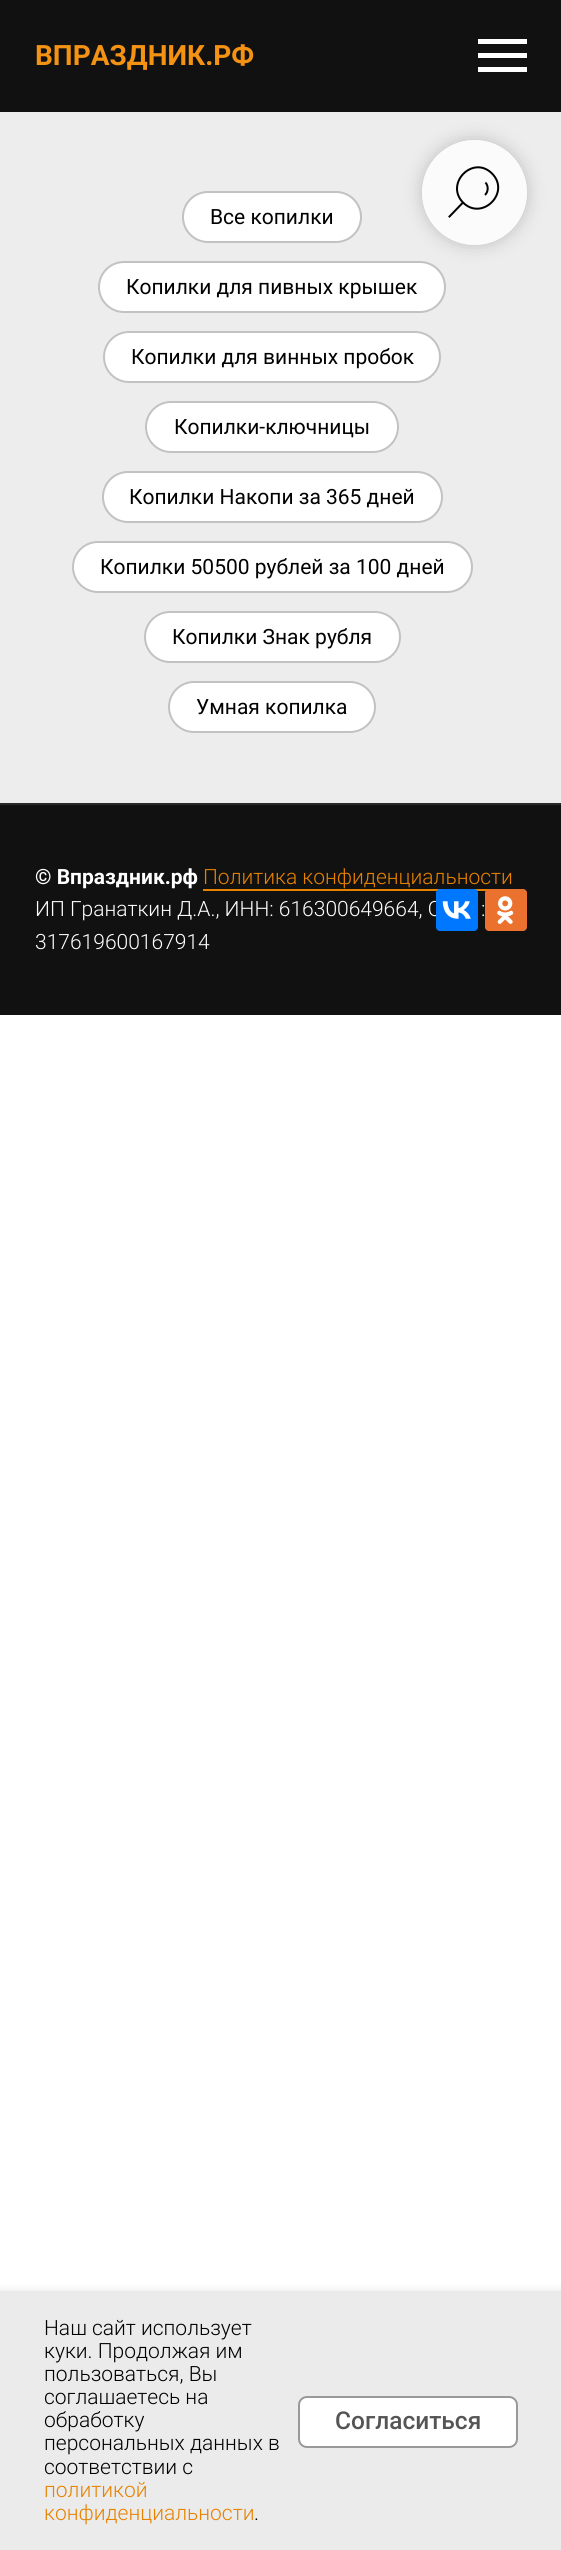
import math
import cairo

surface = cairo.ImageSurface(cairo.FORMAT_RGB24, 561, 2550)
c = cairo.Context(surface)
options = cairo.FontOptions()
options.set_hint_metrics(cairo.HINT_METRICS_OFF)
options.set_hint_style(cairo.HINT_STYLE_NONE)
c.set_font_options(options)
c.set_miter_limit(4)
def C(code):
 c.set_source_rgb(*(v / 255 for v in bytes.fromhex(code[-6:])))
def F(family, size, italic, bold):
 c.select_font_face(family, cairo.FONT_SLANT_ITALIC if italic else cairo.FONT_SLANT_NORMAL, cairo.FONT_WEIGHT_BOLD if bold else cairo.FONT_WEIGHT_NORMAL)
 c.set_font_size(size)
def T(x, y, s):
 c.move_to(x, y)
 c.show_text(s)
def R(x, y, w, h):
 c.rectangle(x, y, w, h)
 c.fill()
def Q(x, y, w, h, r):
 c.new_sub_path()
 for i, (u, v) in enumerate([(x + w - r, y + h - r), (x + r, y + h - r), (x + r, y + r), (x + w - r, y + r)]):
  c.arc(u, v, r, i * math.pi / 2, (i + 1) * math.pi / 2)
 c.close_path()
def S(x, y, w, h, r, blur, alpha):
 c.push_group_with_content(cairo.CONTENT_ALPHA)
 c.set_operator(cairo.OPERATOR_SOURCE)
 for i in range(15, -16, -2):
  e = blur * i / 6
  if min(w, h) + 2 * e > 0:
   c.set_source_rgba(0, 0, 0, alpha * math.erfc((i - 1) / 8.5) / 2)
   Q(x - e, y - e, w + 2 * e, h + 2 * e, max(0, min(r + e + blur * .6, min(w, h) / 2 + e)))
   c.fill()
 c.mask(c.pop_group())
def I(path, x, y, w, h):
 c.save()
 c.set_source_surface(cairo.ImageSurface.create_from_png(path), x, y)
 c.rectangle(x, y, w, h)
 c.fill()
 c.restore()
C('ffffff')
c.paint()
C('111111')
R(0,0,561,112)
F('Roboto',28,0,1)
C('f39213')
T(35,65,'ВПРАЗДНИК.РФ')
C('ffffff')
R(478,39,49,5)
R(478,53,49,5)
R(478,67,49,5)
C('ededed')
R(0,112,561,691)
C('ffffff')
Q(99,262,346,50,25)
c.fill_preserve()
C('c2c2c2')
c.stroke()
c.save()
c.set_fill_rule(cairo.FILL_RULE_EVEN_ODD)
c.new_path()
c.move_to(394,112)
c.line_to(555,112)
c.line_to(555,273)
c.line_to(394,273)
c.close_path()
c.move_to(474.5,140)
c.curve_to(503.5,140,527,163.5,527,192.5)
c.curve_to(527,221.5,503.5,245,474.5,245)
c.curve_to(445.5,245,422,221.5,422,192.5)
c.curve_to(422,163.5,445.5,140,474.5,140)
c.close_path()
c.clip()
C('000000')
S(422,140,105,105,52.5,9,.2)
c.restore()
c.set_source_rgba(1,1,1,0.8)
c.arc(474.5,192.5,52.5,0,2 * math.pi)
c.fill()
c.new_path()
c.move_to(462.5,203)
c.line_to(449.5,216.5)
C('000000')
c.set_line_cap(cairo.LINE_CAP_SQUARE)
c.stroke()
c.new_path()
c.move_to(492,173.5)
c.curve_to(511,192.5,482,221.5,463,202.5)
c.curve_to(444.5,183.5,473,154.5,492,173.5)
c.close_path()
c.move_to(485.5,182.5)
c.curve_to(488.5,186,488.5,191.5,485,195)
c.set_line_cap(cairo.LINE_CAP_BUTT)
c.stroke()
C('ffffff')
Q(183,192,178,50,25)
c.fill_preserve()
C('c2c2c2')
c.stroke()
F('Roboto',21,0,0)
C('000000')
T(210,224,'Все копилки')
T(126,294,'Копилки для пивных крышек')
C('ffffff')
Q(104,332,336,50,25)
c.fill_preserve()
C('c2c2c2')
c.stroke()
C('000000')
T(131,364,'Копилки для винных пробок')
C('ffffff')
Q(146,402,252,50,25)
c.fill_preserve()
C('c2c2c2')
c.stroke()
C('000000')
T(174,434,'Копилки-ключницы')
C('ffffff')
Q(103,472,339,50,25)
c.fill_preserve()
C('c2c2c2')
c.stroke()
C('000000')
T(129,504,'Копилки Накопи за 365 дней')
C('ffffff')
Q(73,542,399,50,25)
c.fill_preserve()
C('c2c2c2')
c.stroke()
C('000000')
T(100,574,'Копилки 50500 рублей за 100 дней')
C('ffffff')
Q(145,612,255,50,25)
c.fill_preserve()
C('c2c2c2')
c.stroke()
C('000000')
T(172,644,'Копилки Знак рубля')
C('ffffff')
Q(169,682,206,50,25)
c.fill_preserve()
C('c2c2c2')
c.stroke()
C('000000')
T(196,714,'Умная копилка')
C('111111')
R(0,805,561,210)
C('292929')
R(0,803,561,2)
F('Roboto',21,0,1)
C('ffffff')
T(35,884,'© Впраздник.рф')
F('Roboto Light',21,0,0)
C('e68200')
T(203,884,'Политика конфиденциальности')
R(203,889,286,2)
C('ffffff')
T(35,916,'ИП Гранаткин Д.А., ИНН: 616300649664, О')
T(481,916,':')
T(35,949,'317619600167914')
C('0077ff')
Q(436,889,42,42,4)
c.fill()
I('1.png',442,901,29,18)
C('eb722e')
Q(485,889,42,42,4)
c.fill()
I('2.png',497,896,17,28)
C('000000')
S(0,2291,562,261,0,4.5,.1)
C('ebebeb')
R(0,2291,561,259)
C('000000')
T(44,2335,'Наш сайт использует')
T(44,2358,'куки. Продолжая им')
T(44,2381,'пользоваться, Вы')
T(44,2404,'соглашаетесь на')
T(44,2427,'обработку')
T(44,2450,'персональных данных в')
T(44,2474,'соответствии с')
C('e68200')
T(44,2497,'политикой')
T(44,2520,'конфиденциальности')
C('000000')
T(254,2520,'.')
C('ffffff')
Q(299,2397,218,50,8)
c.fill_preserve()
C('999999')
c.stroke()
F('Roboto Medium',24.5,0,0)
C('555555')
T(335,2429,'Согласиться')
surface.write_to_png('o.png')
